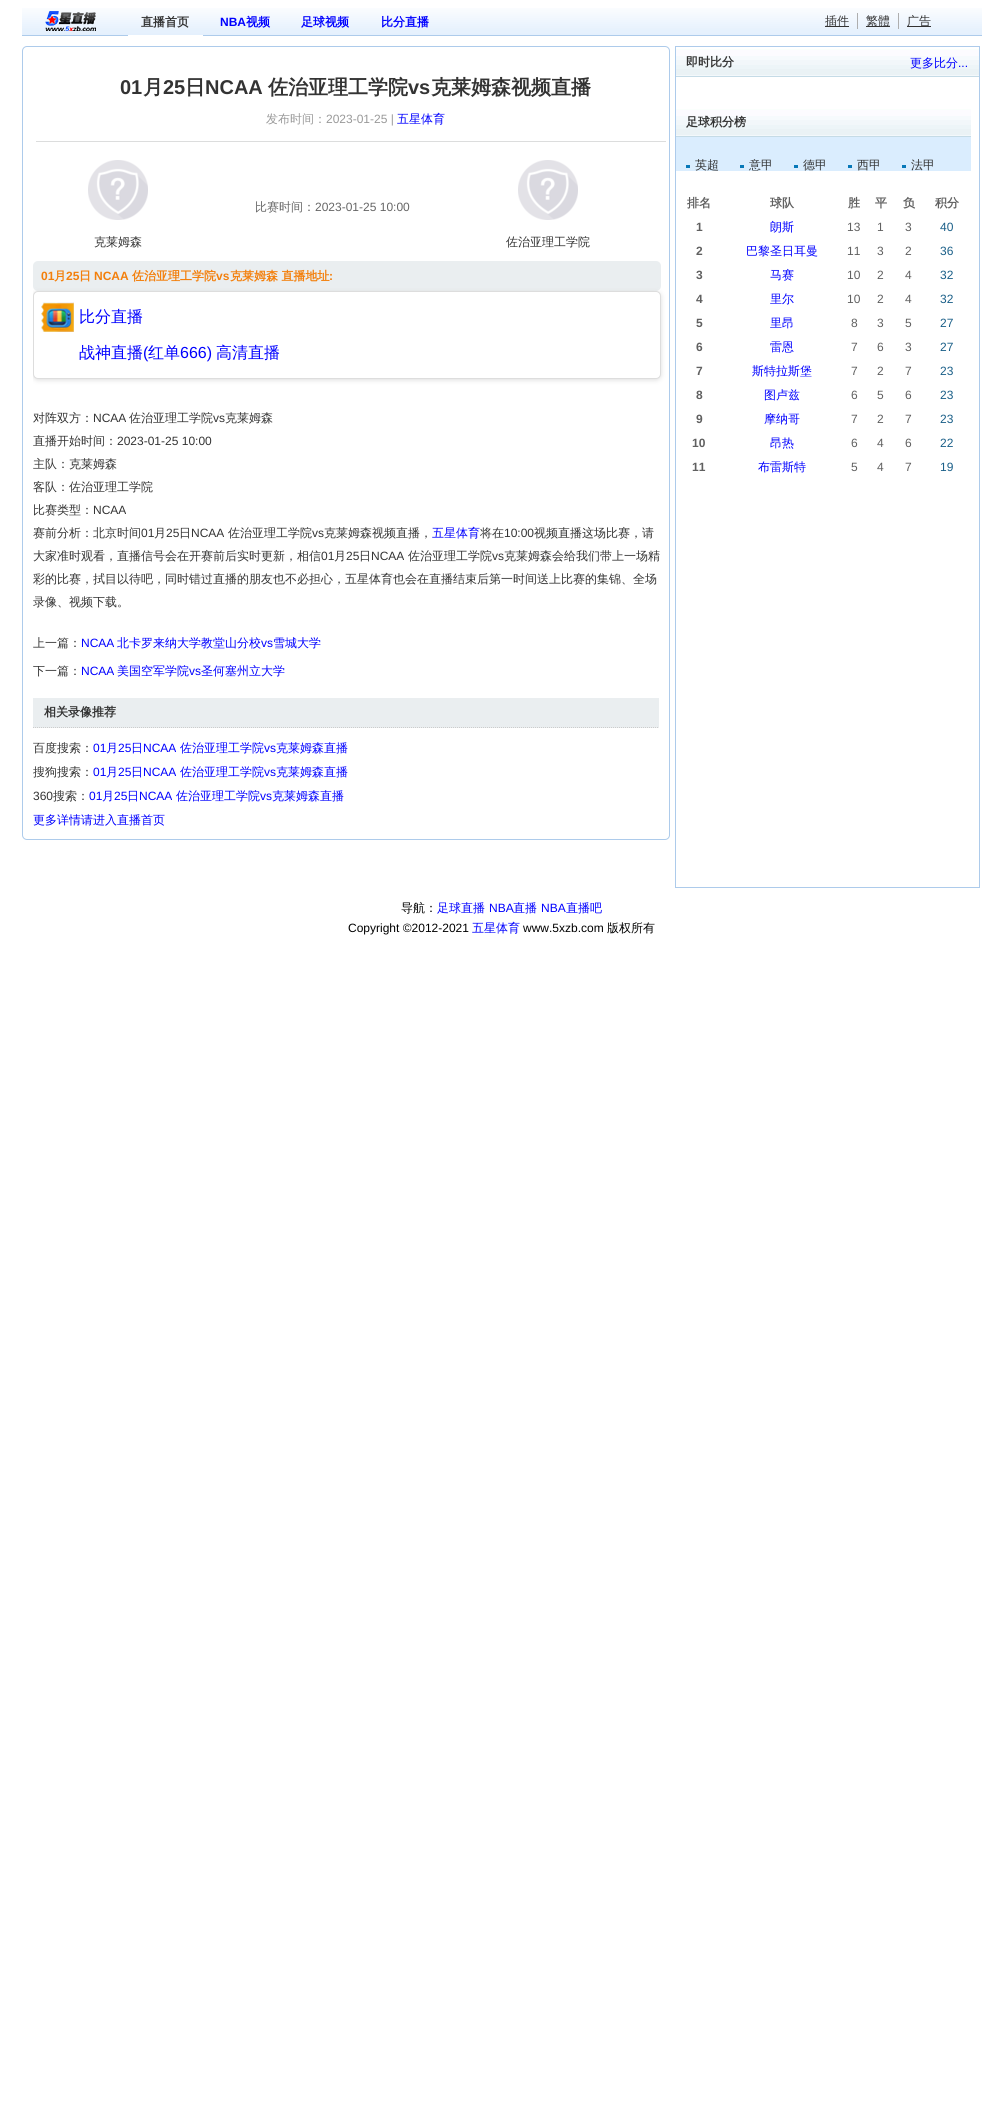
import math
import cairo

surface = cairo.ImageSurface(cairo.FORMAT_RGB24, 1003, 2112)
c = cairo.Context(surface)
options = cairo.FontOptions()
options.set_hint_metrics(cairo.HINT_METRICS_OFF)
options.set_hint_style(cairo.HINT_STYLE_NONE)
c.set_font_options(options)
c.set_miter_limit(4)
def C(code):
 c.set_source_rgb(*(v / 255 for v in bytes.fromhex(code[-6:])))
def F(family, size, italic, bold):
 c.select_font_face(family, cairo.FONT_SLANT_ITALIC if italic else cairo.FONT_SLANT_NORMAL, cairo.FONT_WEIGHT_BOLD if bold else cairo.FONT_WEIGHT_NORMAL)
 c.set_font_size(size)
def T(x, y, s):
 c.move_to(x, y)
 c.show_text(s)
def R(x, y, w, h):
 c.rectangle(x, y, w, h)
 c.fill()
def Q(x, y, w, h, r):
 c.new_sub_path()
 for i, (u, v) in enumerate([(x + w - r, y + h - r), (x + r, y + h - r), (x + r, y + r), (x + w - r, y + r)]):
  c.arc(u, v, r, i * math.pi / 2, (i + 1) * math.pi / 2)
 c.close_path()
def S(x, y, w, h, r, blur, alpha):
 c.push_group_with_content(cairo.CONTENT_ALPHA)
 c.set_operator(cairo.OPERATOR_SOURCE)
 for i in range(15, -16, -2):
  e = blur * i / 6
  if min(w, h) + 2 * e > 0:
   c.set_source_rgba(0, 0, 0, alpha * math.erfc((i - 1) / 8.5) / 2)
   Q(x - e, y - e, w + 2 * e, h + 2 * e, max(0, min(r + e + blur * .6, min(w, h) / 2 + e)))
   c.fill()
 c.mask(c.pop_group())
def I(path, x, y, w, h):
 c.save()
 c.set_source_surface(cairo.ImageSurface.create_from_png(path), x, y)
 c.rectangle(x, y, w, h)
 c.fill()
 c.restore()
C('ffffff')
c.paint()
I('1.png',22,8,960,27)
C('adcbeb')
R(22,35,960,1)
I('2.png',45,11,51,20)
C('ffffff')
R(128,35,75,1)
F('WenQuanYi Zen Hei',12,0,1)
C('333333')
T(141,26,'直播首页')
F('Liberation Sans',12,0,1)
C('0000ff')
T(220,26,'NBA')
F('WenQuanYi Zen Hei',12,0,1)
T(246,26,'视频')
T(301,26,'足球视频')
T(381,26,'比分直播')
C('aeaeae')
R(857,13,1,16)
C('333333')
R(825,26,24,1)
F('WenQuanYi Zen Hei Medium',12,0,0)
T(825,25,'插件')
C('aeaeae')
R(898,13,1,16)
C('333333')
R(866,26,24,1)
T(866,25,'繁體')
R(907,26,24,1)
T(907,25,'广告')
Q(22.5,46.5,647,793,4.5)
C('adcbeb')
c.set_line_width(1)
c.stroke()
C('dcdddd')
R(36,141,630,1)
F('Liberation Sans',20,0,1)
C('333333')
T(120,94,'01')
F('WenQuanYi Zen Hei',20,0,1)
T(143,94,'月')
F('Liberation Sans',20,0,1)
T(163,94,'25')
F('WenQuanYi Zen Hei',20,0,1)
T(185,94,'日')
F('Liberation Sans',20,0,1)
T(205,94,'NCAA')
F('WenQuanYi Zen Hei',20,0,1)
T(268,94,'佐治亚理工学院')
F('Liberation Sans',20,0,1)
T(408,94,'vs')
F('WenQuanYi Zen Hei',20,0,1)
T(431,94,'克莱姆森视频直播')
F('WenQuanYi Zen Hei Medium',12,0,0)
C('999999')
T(266,123,'发布时间：')
F('Liberation Sans',12,0,0)
T(326,123,'2023-01-25 |')
F('WenQuanYi Zen Hei Medium',12,0,0)
C('0000ff')
T(397,123,'五星体育')
C('666666')
T(255,211,'比赛时间：')
F('Liberation Sans',12,0,0)
T(315,211,'2023-01-25 10:00')
I('3.png',88,160,60,60)
F('WenQuanYi Zen Hei Medium',12,0,0)
C('333333')
T(94,246,'克莱姆森')
I('3.png',518,160,60,60)
T(506,246,'佐治亚理工学院')
C('eaeef0')
Q(33,261,628,30,5)
c.fill()
F('Liberation Sans',12,0,1)
C('f37f0c')
T(41,280,'01')
F('WenQuanYi Zen Hei',12,0,1)
T(54,280,'月')
F('Liberation Sans',12,0,1)
T(66,280,'25')
F('WenQuanYi Zen Hei',12,0,1)
T(79,280,'日')
F('Liberation Sans',12,0,1)
T(94,280,'NCAA')
F('WenQuanYi Zen Hei',12,0,1)
T(132,280,'佐治亚理工学院')
F('Liberation Sans',12,0,1)
T(216,280,'vs')
F('WenQuanYi Zen Hei',12,0,1)
T(230,280,'克莱姆森 直播地址')
F('Liberation Sans',12,0,1)
T(329,280,':')
c.save()
c.rectangle(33,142,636,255)
c.clip()
C('dddddd')
S(33,292,628,88,5,2.5,1)
c.restore()
C('ffffff')
Q(33.5,291.5,627,87,4.5)
c.fill_preserve()
C('dddddd')
c.stroke()
I('4.png',41,302,33,30)
F('WenQuanYi Zen Hei Medium',16,0,0)
C('0000ff')
T(79,322,'比分直播')
T(79,358,'战神直播')
F('Liberation Sans',16,0,0)
T(143,358,'(')
F('WenQuanYi Zen Hei Medium',16,0,0)
T(148,358,'红单')
F('Liberation Sans',16,0,0)
T(180,358,'666)')
F('WenQuanYi Zen Hei Medium',16,0,0)
T(216,358,'高清直播')
F('WenQuanYi Zen Hei Medium',12,0,0)
C('333333')
T(33,422,'对阵双方：')
F('Liberation Sans',12,0,0)
T(93,422,'NCAA')
F('WenQuanYi Zen Hei Medium',12,0,0)
T(129,422,'佐治亚理工学院')
F('Liberation Sans',12,0,0)
T(213,422,'vs')
F('WenQuanYi Zen Hei Medium',12,0,0)
T(225,422,'克莱姆森')
T(33,445,'直播开始时间：')
F('Liberation Sans',12,0,0)
T(117,445,'2023-01-25 10:00')
F('WenQuanYi Zen Hei Medium',12,0,0)
T(33,468,'主队：克莱姆森')
T(33,491,'客队：佐治亚理工学院')
T(33,514,'比赛类型：')
F('Liberation Sans',12,0,0)
T(93,514,'NCAA')
F('WenQuanYi Zen Hei Medium',12,0,0)
T(33,537,'赛前分析：北京时间')
F('Liberation Sans',12,0,0)
T(141,537,'01')
F('WenQuanYi Zen Hei Medium',12,0,0)
T(154,537,'月')
F('Liberation Sans',12,0,0)
T(166,537,'25')
F('WenQuanYi Zen Hei Medium',12,0,0)
T(179,537,'日')
F('Liberation Sans',12,0,0)
T(191,537,'NCAA')
F('WenQuanYi Zen Hei Medium',12,0,0)
T(228,537,'佐治亚理工学院')
F('Liberation Sans',12,0,0)
T(312,537,'vs')
F('WenQuanYi Zen Hei Medium',12,0,0)
T(324,537,'克莱姆森视频直播，')
C('0000ff')
T(432,537,'五星体育')
C('333333')
T(480,537,'将在')
F('Liberation Sans',12,0,0)
T(504,537,'10:00')
F('WenQuanYi Zen Hei Medium',12,0,0)
T(534,537,'视频直播这场比赛，请')
T(33,560,'大家准时观看，直播信号会在开赛前后实时更新，相信')
F('Liberation Sans',12,0,0)
T(321,560,'01')
F('WenQuanYi Zen Hei Medium',12,0,0)
T(334,560,'月')
F('Liberation Sans',12,0,0)
T(346,560,'25')
F('WenQuanYi Zen Hei Medium',12,0,0)
T(359,560,'日')
F('Liberation Sans',12,0,0)
T(371,560,'NCAA')
F('WenQuanYi Zen Hei Medium',12,0,0)
T(408,560,'佐治亚理工学院')
F('Liberation Sans',12,0,0)
T(492,560,'vs')
F('WenQuanYi Zen Hei Medium',12,0,0)
T(504,560,'克莱姆森会给我们带上一场精')
T(33,583,'彩的比赛，拭目以待吧，同时错过直播的朋友也不必担心，五星体育也会在直播结束后第一时间送上比赛的集锦、全场')
T(33,606,'录像、视频下载。')
T(33,647,'上一篇：')
F('Liberation Sans',12,0,0)
C('0000ff')
T(81,647,'NCAA')
F('WenQuanYi Zen Hei Medium',12,0,0)
T(117,647,'北卡罗来纳大学教堂山分校')
F('Liberation Sans',12,0,0)
T(261,647,'vs')
F('WenQuanYi Zen Hei Medium',12,0,0)
T(273,647,'雪城大学')
C('333333')
T(33,675,'下一篇：')
F('Liberation Sans',12,0,0)
C('0000ff')
T(81,675,'NCAA')
F('WenQuanYi Zen Hei Medium',12,0,0)
T(117,675,'美国空军学院')
F('Liberation Sans',12,0,0)
T(189,675,'vs')
F('WenQuanYi Zen Hei Medium',12,0,0)
T(201,675,'圣何塞州立大学')
C('eaeef0')
R(33,698,626,30)
c.new_path()
c.move_to(33,727.5)
c.line_to(659,727.5)
C('cccccc')
c.set_dash([1,1])
c.stroke()
F('WenQuanYi Zen Hei',12,0,1)
C('333333')
T(44,716,'相关录像推荐')
F('WenQuanYi Zen Hei Medium',12,0,0)
T(33,752,'百度搜索：')
F('Liberation Sans',12,0,0)
C('0000ff')
T(93,752,'01')
F('WenQuanYi Zen Hei Medium',12,0,0)
T(106,752,'月')
F('Liberation Sans',12,0,0)
T(118,752,'25')
F('WenQuanYi Zen Hei Medium',12,0,0)
T(131,752,'日')
F('Liberation Sans',12,0,0)
T(143,752,'NCAA')
F('WenQuanYi Zen Hei Medium',12,0,0)
T(180,752,'佐治亚理工学院')
F('Liberation Sans',12,0,0)
T(264,752,'vs')
F('WenQuanYi Zen Hei Medium',12,0,0)
T(276,752,'克莱姆森直播')
c.save()
c.rectangle(33,760,628,24)
c.clip()
C('333333')
T(33,776,'搜狗搜索：')
c.restore()
F('Liberation Sans',12,0,0)
T(93,776,'01')
F('WenQuanYi Zen Hei Medium',12,0,0)
T(106,776,'月')
F('Liberation Sans',12,0,0)
T(118,776,'25')
F('WenQuanYi Zen Hei Medium',12,0,0)
T(131,776,'日')
F('Liberation Sans',12,0,0)
T(143,776,'NCAA')
F('WenQuanYi Zen Hei Medium',12,0,0)
T(180,776,'佐治亚理工学院')
F('Liberation Sans',12,0,0)
T(264,776,'vs')
F('WenQuanYi Zen Hei Medium',12,0,0)
T(276,776,'克莱姆森直播')
F('Liberation Sans',12,0,0)
C('333333')
T(33,800,'360')
F('WenQuanYi Zen Hei Medium',12,0,0)
T(53,800,'搜索：')
F('Liberation Sans',12,0,0)
C('0000ff')
T(89,800,'01')
F('WenQuanYi Zen Hei Medium',12,0,0)
T(102,800,'月')
F('Liberation Sans',12,0,0)
T(114,800,'25')
F('WenQuanYi Zen Hei Medium',12,0,0)
T(127,800,'日')
F('Liberation Sans',12,0,0)
T(139,800,'NCAA')
F('WenQuanYi Zen Hei Medium',12,0,0)
T(176,800,'佐治亚理工学院')
F('Liberation Sans',12,0,0)
T(260,800,'vs')
F('WenQuanYi Zen Hei Medium',12,0,0)
T(272,800,'克莱姆森直播')
T(33,824,'更多详情请进入直播首页')
c.rectangle(675.5,46.5,304,841)
C('adcbeb')
c.set_dash([])
c.stroke()
I('5.png',676,49,303,28)
F('WenQuanYi Zen Hei',12,0,1)
C('333333')
T(686,66,'即时比分')
F('WenQuanYi Zen Hei Medium',12,0,0)
C('0000ff')
T(910,67,'更多比分')
F('Liberation Sans',12,0,0)
T(958,67,'...')
I('6.png',676,109,295,28)
F('WenQuanYi Zen Hei',12,0,1)
C('333333')
T(686,126,'足球积分榜')
C('daedfe')
R(676,137,295,34)
C('0778b8')
R(686,165,4,3)
F('WenQuanYi Zen Hei Medium',12,0,0)
C('333333')
T(695,169,'英超')
C('0778b8')
R(740,165,4,3)
C('333333')
T(749,169,'意甲')
C('0778b8')
R(794,165,4,3)
C('333333')
T(803,169,'德甲')
C('0778b8')
R(848,165,4,3)
C('333333')
T(857,169,'西甲')
C('0778b8')
R(902,165,4,3)
C('333333')
T(911,169,'法甲')
F('WenQuanYi Zen Hei',12,0,1)
C('606060')
T(687,207,'排名')
T(770,207,'球队')
T(848,207,'胜')
T(875,207,'平')
T(903,207,'负')
T(935,207,'积分')
F('Liberation Sans',12,0,1)
T(696,231,'1')
F('WenQuanYi Zen Hei Medium',12,0,0)
C('0000ff')
T(770,231,'朗斯')
F('Liberation Sans',12,0,0)
C('606060')
T(847,231,'13')
T(877,231,'1')
T(905,231,'3')
C('1a5f88')
T(940,231,'40')
F('Liberation Sans',12,0,1)
C('606060')
T(696,255,'2')
F('WenQuanYi Zen Hei Medium',12,0,0)
C('0000ff')
T(746,255,'巴黎圣日耳曼')
F('Liberation Sans',12,0,0)
C('606060')
T(847,255,'11')
T(877,255,'3')
T(905,255,'2')
C('1a5f88')
T(940,255,'36')
F('Liberation Sans',12,0,1)
C('606060')
T(696,279,'3')
F('WenQuanYi Zen Hei Medium',12,0,0)
C('0000ff')
T(770,279,'马赛')
F('Liberation Sans',12,0,0)
C('606060')
T(847,279,'10')
T(877,279,'2')
T(905,279,'4')
C('1a5f88')
T(940,279,'32')
F('Liberation Sans',12,0,1)
C('606060')
T(696,303,'4')
F('WenQuanYi Zen Hei Medium',12,0,0)
C('0000ff')
T(770,303,'里尔')
F('Liberation Sans',12,0,0)
C('606060')
T(847,303,'10')
T(877,303,'2')
T(905,303,'4')
C('1a5f88')
T(940,303,'32')
F('Liberation Sans',12,0,1)
C('606060')
T(696,327,'5')
F('WenQuanYi Zen Hei Medium',12,0,0)
C('0000ff')
T(770,327,'里昂')
F('Liberation Sans',12,0,0)
C('606060')
T(851,327,'8')
T(877,327,'3')
T(905,327,'5')
C('1a5f88')
T(940,327,'27')
F('Liberation Sans',12,0,1)
C('606060')
T(696,351,'6')
F('WenQuanYi Zen Hei Medium',12,0,0)
C('0000ff')
T(770,351,'雷恩')
F('Liberation Sans',12,0,0)
C('606060')
T(851,351,'7')
T(877,351,'6')
T(905,351,'3')
C('1a5f88')
T(940,351,'27')
F('Liberation Sans',12,0,1)
C('606060')
T(696,375,'7')
F('WenQuanYi Zen Hei Medium',12,0,0)
C('0000ff')
T(752,375,'斯特拉斯堡')
F('Liberation Sans',12,0,0)
C('606060')
T(851,375,'7')
T(877,375,'2')
T(905,375,'7')
C('1a5f88')
T(940,375,'23')
F('Liberation Sans',12,0,1)
C('606060')
T(696,399,'8')
F('WenQuanYi Zen Hei Medium',12,0,0)
C('0000ff')
T(764,399,'图卢兹')
F('Liberation Sans',12,0,0)
C('606060')
T(851,399,'6')
T(877,399,'5')
T(905,399,'6')
C('1a5f88')
T(940,399,'23')
F('Liberation Sans',12,0,1)
C('606060')
T(696,423,'9')
F('WenQuanYi Zen Hei Medium',12,0,0)
C('0000ff')
T(764,423,'摩纳哥')
F('Liberation Sans',12,0,0)
C('606060')
T(851,423,'7')
T(877,423,'2')
T(905,423,'7')
C('1a5f88')
T(940,423,'23')
F('Liberation Sans',12,0,1)
C('606060')
T(692,447,'10')
F('WenQuanYi Zen Hei Medium',12,0,0)
C('0000ff')
T(770,447,'昂热')
F('Liberation Sans',12,0,0)
C('606060')
T(851,447,'6')
T(877,447,'4')
T(905,447,'6')
C('1a5f88')
T(940,447,'22')
F('Liberation Sans',12,0,1)
C('606060')
T(692,471,'11')
F('WenQuanYi Zen Hei Medium',12,0,0)
C('0000ff')
T(758,471,'布雷斯特')
F('Liberation Sans',12,0,0)
C('606060')
T(851,471,'5')
T(877,471,'4')
T(905,471,'7')
C('1a5f88')
T(940,471,'19')
F('WenQuanYi Zen Hei Medium',12,0,0)
C('000000')
T(401,912,'导航：')
C('0000ff')
T(437,912,'足球直播')
F('Liberation Sans',12,0,0)
T(489,912,'NBA')
F('WenQuanYi Zen Hei Medium',12,0,0)
T(513,912,'直播')
F('Liberation Sans',12,0,0)
T(541,912,'NBA')
F('WenQuanYi Zen Hei Medium',12,0,0)
T(566,912,'直播吧')
F('Liberation Sans',12,0,0)
C('000000')
T(348,932,'Copyright ©2012-2021')
F('WenQuanYi Zen Hei Medium',12,0,0)
C('0000ff')
T(472,932,'五星体育')
F('Liberation Sans',12,0,0)
C('000000')
T(523,932,'www.5xzb.com')
F('WenQuanYi Zen Hei Medium',12,0,0)
T(607,932,'版权所有')
surface.write_to_png('o.png')
